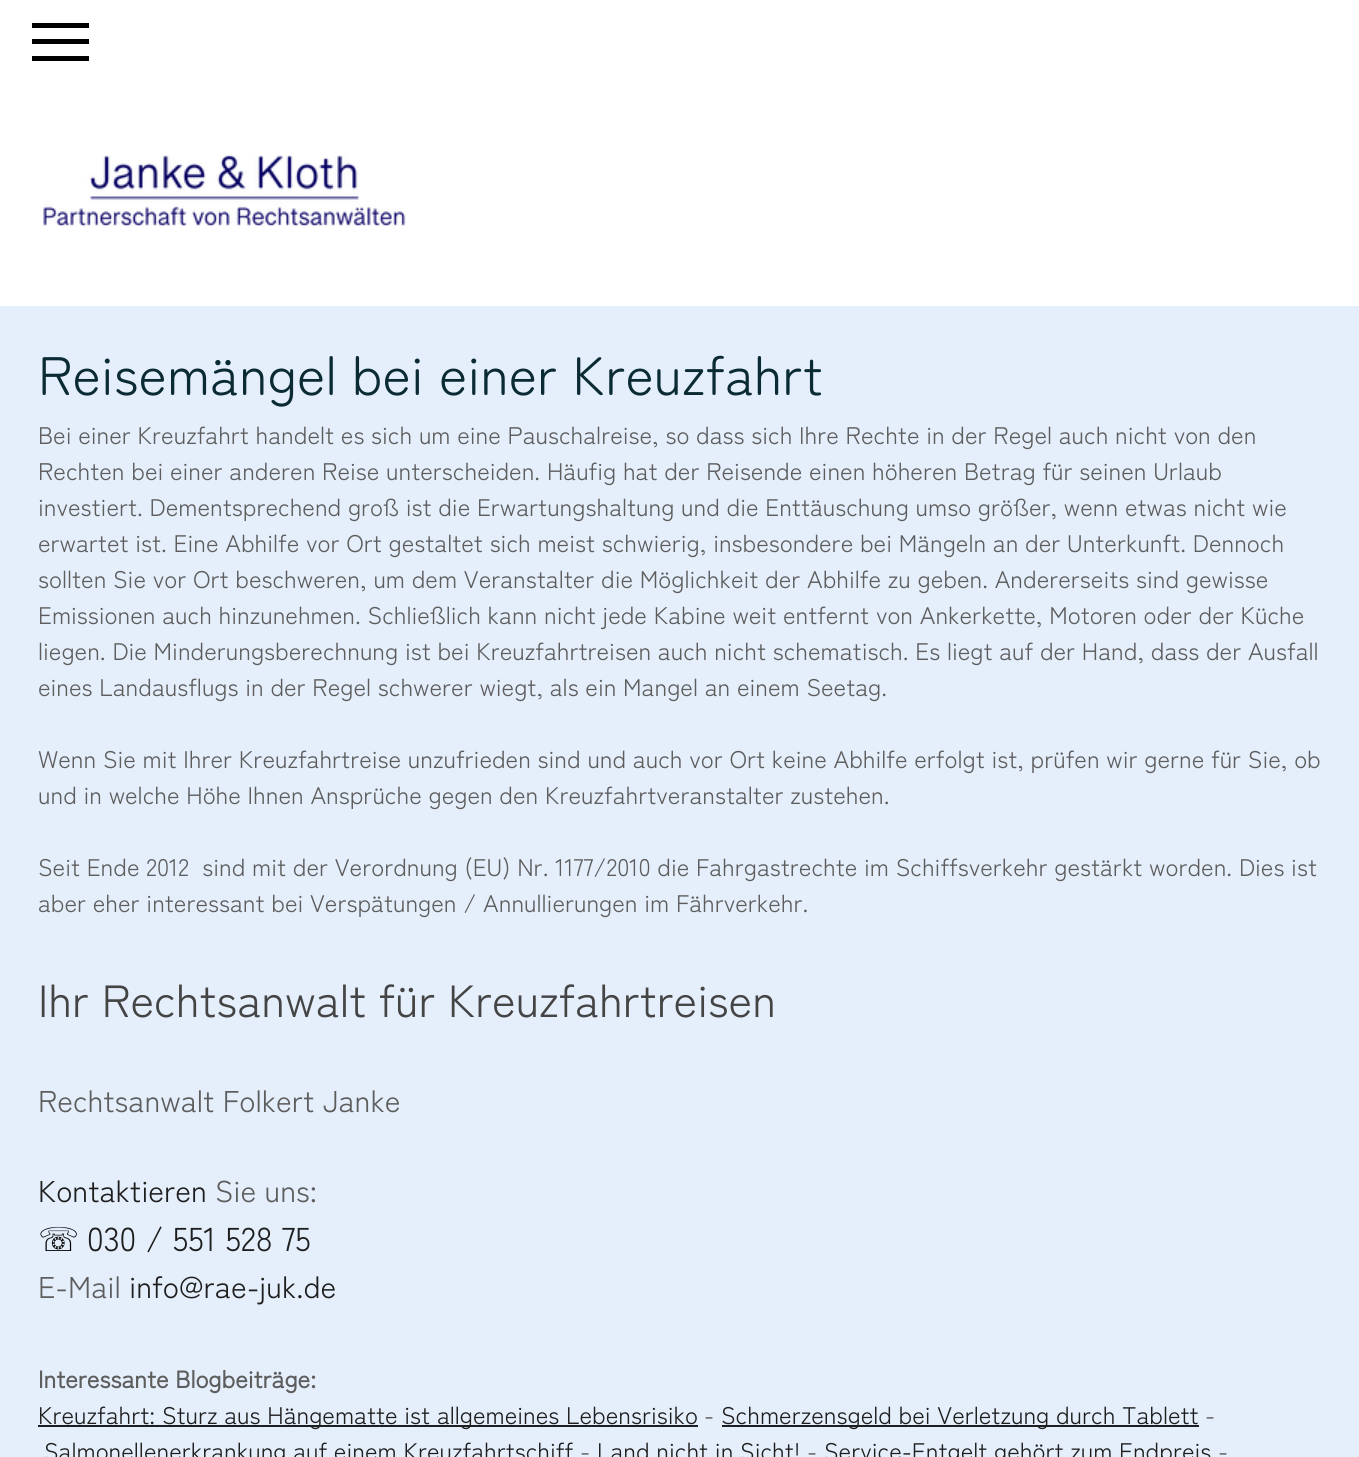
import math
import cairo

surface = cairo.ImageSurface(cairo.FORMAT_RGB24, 1359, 1457)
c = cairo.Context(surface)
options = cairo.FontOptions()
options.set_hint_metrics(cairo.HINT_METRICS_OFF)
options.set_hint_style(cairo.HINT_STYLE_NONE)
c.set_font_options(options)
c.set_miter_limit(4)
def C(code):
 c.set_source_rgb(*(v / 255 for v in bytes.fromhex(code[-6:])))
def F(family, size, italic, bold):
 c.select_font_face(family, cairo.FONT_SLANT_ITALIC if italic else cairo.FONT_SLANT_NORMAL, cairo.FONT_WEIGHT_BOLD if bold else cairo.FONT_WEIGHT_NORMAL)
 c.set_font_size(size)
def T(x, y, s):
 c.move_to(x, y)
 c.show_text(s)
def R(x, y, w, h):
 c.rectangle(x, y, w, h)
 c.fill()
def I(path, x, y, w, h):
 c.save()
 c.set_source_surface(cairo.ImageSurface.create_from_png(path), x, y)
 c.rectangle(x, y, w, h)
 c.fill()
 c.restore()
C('ffffff')
c.paint()
C('000000')
R(32,39,57,5)
R(32,23,57,5)
R(32,56,57,5)
I('1.png',43,155,363,72)
C('e5effc')
R(0,306,1359,1151)
F('Zen Maru Gothic',54,0,0)
C('0a2b33')
T(38,395,'Reisemängel bei einer Kreuzfahrt')
F('Zen Kaku Gothic New',24,0,0)
C('5d5d5d')
T(38,444,'Bei einer Kreuzfahrt handelt es sich um eine Pauschalreise, so dass sich Ihre Rechte in der Regel auch nicht von den')
T(38,480,'Rechten bei einer anderen Reise unterscheiden. Häufig hat der Reisende einen höheren Betrag für seinen Urlaub')
T(38,516,'investiert. Dementsprechend groß ist die Erwartungshaltung und die Enttäuschung umso größer, wenn etwas nicht wie')
T(38,552,'erwartet ist. Eine Abhilfe vor Ort gestaltet sich meist schwierig, insbesondere bei Mängeln an der Unterkunft. Dennoch')
T(38,588,'sollten Sie vor Ort beschweren, um dem Veranstalter die Möglichkeit der Abhilfe zu geben. Andererseits sind gewisse')
T(38,624,'Emissionen auch hinzunehmen. Schließlich kann nicht jede Kabine weit entfernt von Ankerkette, Motoren oder der Küche')
T(38,660,'liegen. Die Minderungsberechnung ist bei Kreuzfahrtreisen auch nicht schematisch. Es liegt auf der Hand, dass der Ausfall')
T(38,696,'eines Landausflugs in der Regel schwerer wiegt, als ein Mangel an einem Seetag.')
T(38,768,'Wenn Sie mit Ihrer Kreuzfahrtreise unzufrieden sind und auch vor Ort keine Abhilfe erfolgt ist, prüfen wir gerne für Sie, ob')
T(38,804,'und in welche Höhe Ihnen Ansprüche gegen den Kreuzfahrtveranstalter zustehen.')
T(38,876,'Seit Ende 2012  sind mit der Verordnung (EU) Nr. 1177/2010 die Fahrgastrechte im Schiffsverkehr gestärkt worden. Dies ist')
T(38,912,'aber eher interessant bei Verspätungen / Annullierungen im Fährverkehr.')
F('Zen Kaku Gothic New',45,0,0)
C('444444')
T(38,1017,'Ihr Rechtsanwalt für Kreuzfahrtreisen')
F('Zen Kaku Gothic New',30,0,0)
C('5d5d5d')
T(38,1112,'Rechtsanwalt Folkert Janke')
C('1e1e1e')
T(38,1202,'Kontaktieren')
C('5d5d5d')
T(215,1202,'Sie uns:')
F('DejaVu Sans',33,0,0)
C('000000')
T(38,1251,'☏')
F('Zen Kaku Gothic New',33,0,0)
C('1e1e1e')
T(87,1251,'030 / 551 528 75')
F('Zen Kaku Gothic New',30,0,0)
C('5d5d5d')
T(38,1298,'E-Mail')
C('1e1e1e')
T(129,1298,'info@rae-juk.de')
F('Zen Kaku Gothic New',24,0,1)
C('5d5d5d')
T(38,1388,'Interessante Blogbeiträge:')
C('1e1e1e')
R(38,1425,660,2)
F('Zen Kaku Gothic New',24,0,0)
T(38,1424,'Kreuzfahrt: Sturz aus Hängematte ist allgemeines Lebensrisiko')
C('5d5d5d')
T(704,1424,'-')
C('1e1e1e')
R(722,1425,477,2)
T(721,1424,'Schmerzensgeld bei Verletzung durch Tablett')
C('5d5d5d')
T(1205,1424,'-')
C('1e1e1e')
T(44,1460,'Salmonellenerkrankung auf einem Kreuzfahrtschiff')
C('5d5d5d')
T(580,1460,'-')
C('1e1e1e')
T(597,1460,'Land nicht in Sicht!')
C('5d5d5d')
T(807,1460,'-')
C('1e1e1e')
T(824,1460,'Service-Entgelt gehört zum Endpreis')
C('5d5d5d')
T(1218,1460,'-')
surface.write_to_png('o.png')
